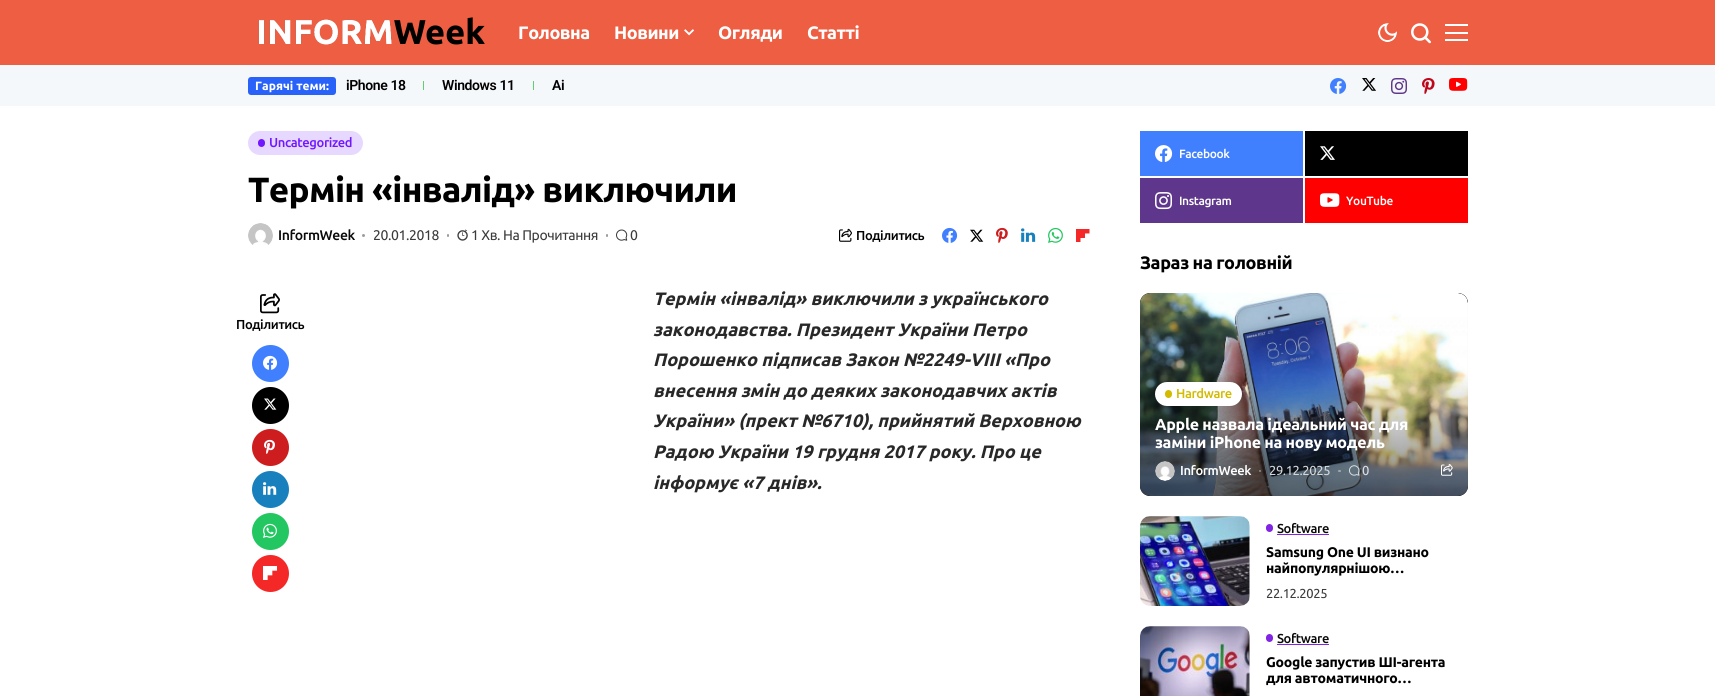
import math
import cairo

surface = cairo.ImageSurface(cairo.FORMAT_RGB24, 1715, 696)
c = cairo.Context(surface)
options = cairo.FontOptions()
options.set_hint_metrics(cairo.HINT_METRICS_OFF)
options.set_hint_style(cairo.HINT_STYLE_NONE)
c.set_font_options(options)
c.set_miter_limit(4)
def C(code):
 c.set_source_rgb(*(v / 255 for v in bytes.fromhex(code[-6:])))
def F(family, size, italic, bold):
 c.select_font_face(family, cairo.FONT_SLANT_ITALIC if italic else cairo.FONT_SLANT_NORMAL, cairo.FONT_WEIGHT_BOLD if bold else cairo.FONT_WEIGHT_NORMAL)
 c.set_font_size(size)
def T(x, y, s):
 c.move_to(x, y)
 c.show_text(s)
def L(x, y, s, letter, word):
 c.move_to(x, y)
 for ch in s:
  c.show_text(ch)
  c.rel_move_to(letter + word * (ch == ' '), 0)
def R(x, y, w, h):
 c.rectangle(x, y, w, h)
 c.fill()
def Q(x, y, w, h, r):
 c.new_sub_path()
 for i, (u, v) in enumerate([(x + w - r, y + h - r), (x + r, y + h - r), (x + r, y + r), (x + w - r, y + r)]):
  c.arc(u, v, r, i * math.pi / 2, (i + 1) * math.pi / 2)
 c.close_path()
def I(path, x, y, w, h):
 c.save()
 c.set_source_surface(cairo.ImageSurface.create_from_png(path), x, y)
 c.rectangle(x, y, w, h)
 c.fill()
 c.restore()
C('ffffff')
c.paint()
C('ed5e42')
R(0,0,1715,65)
I('1.png',258,17,227,28)
F('Ubuntu',18,0,1)
C('ffffff')
L(518,39,'Головна',-.5,0)
L(614,39,'Новини',-.5,0)
I('2.png',684,29,11,7)
L(718,39,'Огляди',-.5,0)
L(807,39,'Статті',-.5,0)
I('3.png',1378,23,19,19)
I('4.png',1411,23,20,21)
R(1445,24,23,2)
R(1445,32,23,2)
R(1445,39,23,2)
C('f5f8fa')
R(0,65,1715,41)
C('2962f9')
Q(248,77,88,18,3)
c.fill()
F('Ubuntu',12,0,1)
C('ffffff')
T(255,90,'Гарячі теми:')
F('Roboto SemiBold',14,0,0)
C('000000')
L(346,90,'iPhone 18',-.4,0)
C('61ce70')
R(423,81,1,9)
C('000000')
L(442,90,'Windows 11',-.4,0)
C('61ce70')
R(533,81,1,9)
C('000000')
L(552,90,'Ai',-.4,0)
I('5.png',1330,78,17,16)
I('6.png',1362,78,14,13)
I('7.png',1391,78,16,16)
I('8.png',1422,78,13,16)
I('9.png',1449,78,19,13)
C('e7d8ff')
Q(248,131,115,24,12)
c.fill()
C('7118ff')
Q(258,139,7,8,3.5)
c.fill()
F('Ubuntu Medium',13,0,0)
L(269,147,'Uncategorized',-.4,0)
F('Ubuntu',35,0,1)
C('000000')
L(248,202,'Термін «інвалід» виключили',-.7,0)
I('10.png',248,223,25,22)
F('Ubuntu Medium',14,0,0)
C('0a0a0a')
L(278,240,'InformWeek',-.4,0)
C('9d9d9d')
c.new_path()
c.arc(363.5,235.5,1.5,0,2 * math.pi)
c.fill()
F('Ubuntu',14,0,0)
C('3b3b3b')
L(373,240,'20.01.2018',-.4,0)
C('9d9d9d')
Q(447,234,2,3,1)
c.fill()
I('11.png',457,229,11,12)
C('3b3b3b')
L(471,240,'1 Хв. На Прочитання',-.4,0)
C('9d9d9d')
Q(606,234,2,3,1)
c.fill()
I('12.png',616,229,12,12)
C('3b3b3b')
L(630,240,'0',-.4,0)
I('13.png',839,228,13,14)
F('Ubuntu Medium',13,0,0)
C('000000')
L(856,240,'Поділитись',-.4,0)
I('14.png',942,227,16,16)
I('15.png',970,229,14,13)
I('16.png',996,227,12,16)
I('17.png',1021,228,15,14)
I('18.png',1048,227,15,16)
I('19.png',1076,229,14,13)
I('20.png',260,293,20,21)
L(236,329,'Поділитись',-.4,0)
C('4080ff')
c.new_path()
c.arc(270.5,363.5,18.5,0,2 * math.pi)
c.fill()
I('21.png',263,355,15,15)
C('000000')
c.arc(270.5,405.5,18.5,0,2 * math.pi)
c.fill()
I('22.png',264,398,13,12)
C('cd1d1f')
c.arc(270.5,447.5,18.5,0,2 * math.pi)
c.fill()
I('23.png',264,439,11,15)
C('1980be')
c.arc(270.5,489.5,18.5,0,2 * math.pi)
c.fill()
I('24.png',263,482,14,13)
C('23c761')
c.arc(270.5,531.5,18.5,0,2 * math.pi)
c.fill()
I('25.png',263,523,14,15)
C('f52828')
c.arc(270.5,573.5,18.5,0,2 * math.pi)
c.fill()
I('26.png',263,566,14,14)
F('Ubuntu',18,1,1)
C('282828')
T(653,305,'Термін «інвалід» виключили з українського')
T(653,336,'законодавства. Президент України Петро')
T(653,366,'Порошенко підписав Закон №2249-VIII «Про')
T(653,397,'внесення змін до деяких законодавчих актів')
T(653,427,'України» (прект №6710), прийнятий Верховною')
T(653,458,'Радою України 19 грудня 2017 року. Про це')
T(653,489,'інформує «7 днів».')
C('4080ff')
R(1140,131,163,45)
I('27.png',1155,145,18,17)
F('Ubuntu Medium',12,0,0)
C('ffffff')
L(1179,158,'Facebook',-.4,0)
C('000000')
R(1305,131,163,45)
I('28.png',1320,146,15,14)
C('5e368b')
R(1140,178,163,45)
I('29.png',1155,192,17,18)
C('ffffff')
L(1179,205,'Instagram',-.4,0)
C('ff0000')
R(1305,178,163,45)
I('30.png',1320,193,20,14)
C('ffffff')
L(1346,205,'YouTube',-.4,0)
F('Ubuntu',18,0,1)
C('000000')
L(1140,269,'Зараз на головній',-.4,0)
C('222222')
Q(1140,293,328,203,10)
c.fill()
I('31.png',1140,293,328,203)
gradient = cairo.LinearGradient(1304,293,1304,496)
gradient.add_color_stop_rgba(.4,0,0,0,0)
gradient.add_color_stop_rgba(1,0,0,0,.51)
c.set_source(gradient)
Q(1140,293,328,203,10)
c.fill()
C('ffffff')
Q(1155,382,87,24,12)
c.fill()
C('d3bb00')
Q(1165,390,7,8,3.5)
c.fill()
F('Ubuntu Medium',13,0,0)
L(1176,398,'Hardware',-.4,0)
F('Ubuntu',16,0,1)
C('ffffff')
L(1155,430,'Apple назвала ідеальний час для',-.3,0)
L(1155,448,'заміни iPhone на нову модель',-.3,0)
I('32.png',1155,461,20,20)
F('Ubuntu Medium',13,0,0)
L(1180,475,'InformWeek',-.4,0)
c.set_source_rgba(1,1,1,0.4)
c.new_path()
c.arc(1260,471,1,0,2 * math.pi)
c.fill()
F('Ubuntu',13,0,0)
C('d5d7d9')
L(1269,475,'29.12.2025',-.4,0)
C('9ea8b0')
Q(1338,470,3,2,1)
c.fill()
I('33.png',1349,465,11,11)
C('dedfe2')
L(1362,475,'0',-.4,0)
I('34.png',1441,464,12,12)
I('35.png',1140,516,110,90)
C('8224e3')
Q(1266,524,7,8,3.5)
c.fill()
F('Ubuntu Medium',13,0,0)
C('0a0a0a')
L(1277,533,'Software',-.4,0)
C('8224e3')
R(1277,534,52,1)
F('Ubuntu',14,0,1)
C('000000')
L(1266,557,'Samsung One UI визнано',-.25,0)
L(1266,573,'найпопулярнішою…',-.25,0)
F('Ubuntu',13,0,0)
C('3b3b3b')
L(1266,598,'22.12.2025',-.4,0)
I('36.png',1140,626,110,70)
C('8224e3')
Q(1266,634,7,8,3.5)
c.fill()
F('Ubuntu Medium',13,0,0)
C('0a0a0a')
L(1277,643,'Software',-.4,0)
C('8224e3')
R(1277,644,52,1)
F('Ubuntu',14,0,1)
C('000000')
L(1266,667,'Google запустив ШІ-агента',-.25,0)
c.save()
c.rectangle(1266,655,202,31)
c.clip()
L(1266,683,'для автоматичного…',-.25,0)
c.restore()
surface.write_to_png('o.png')
